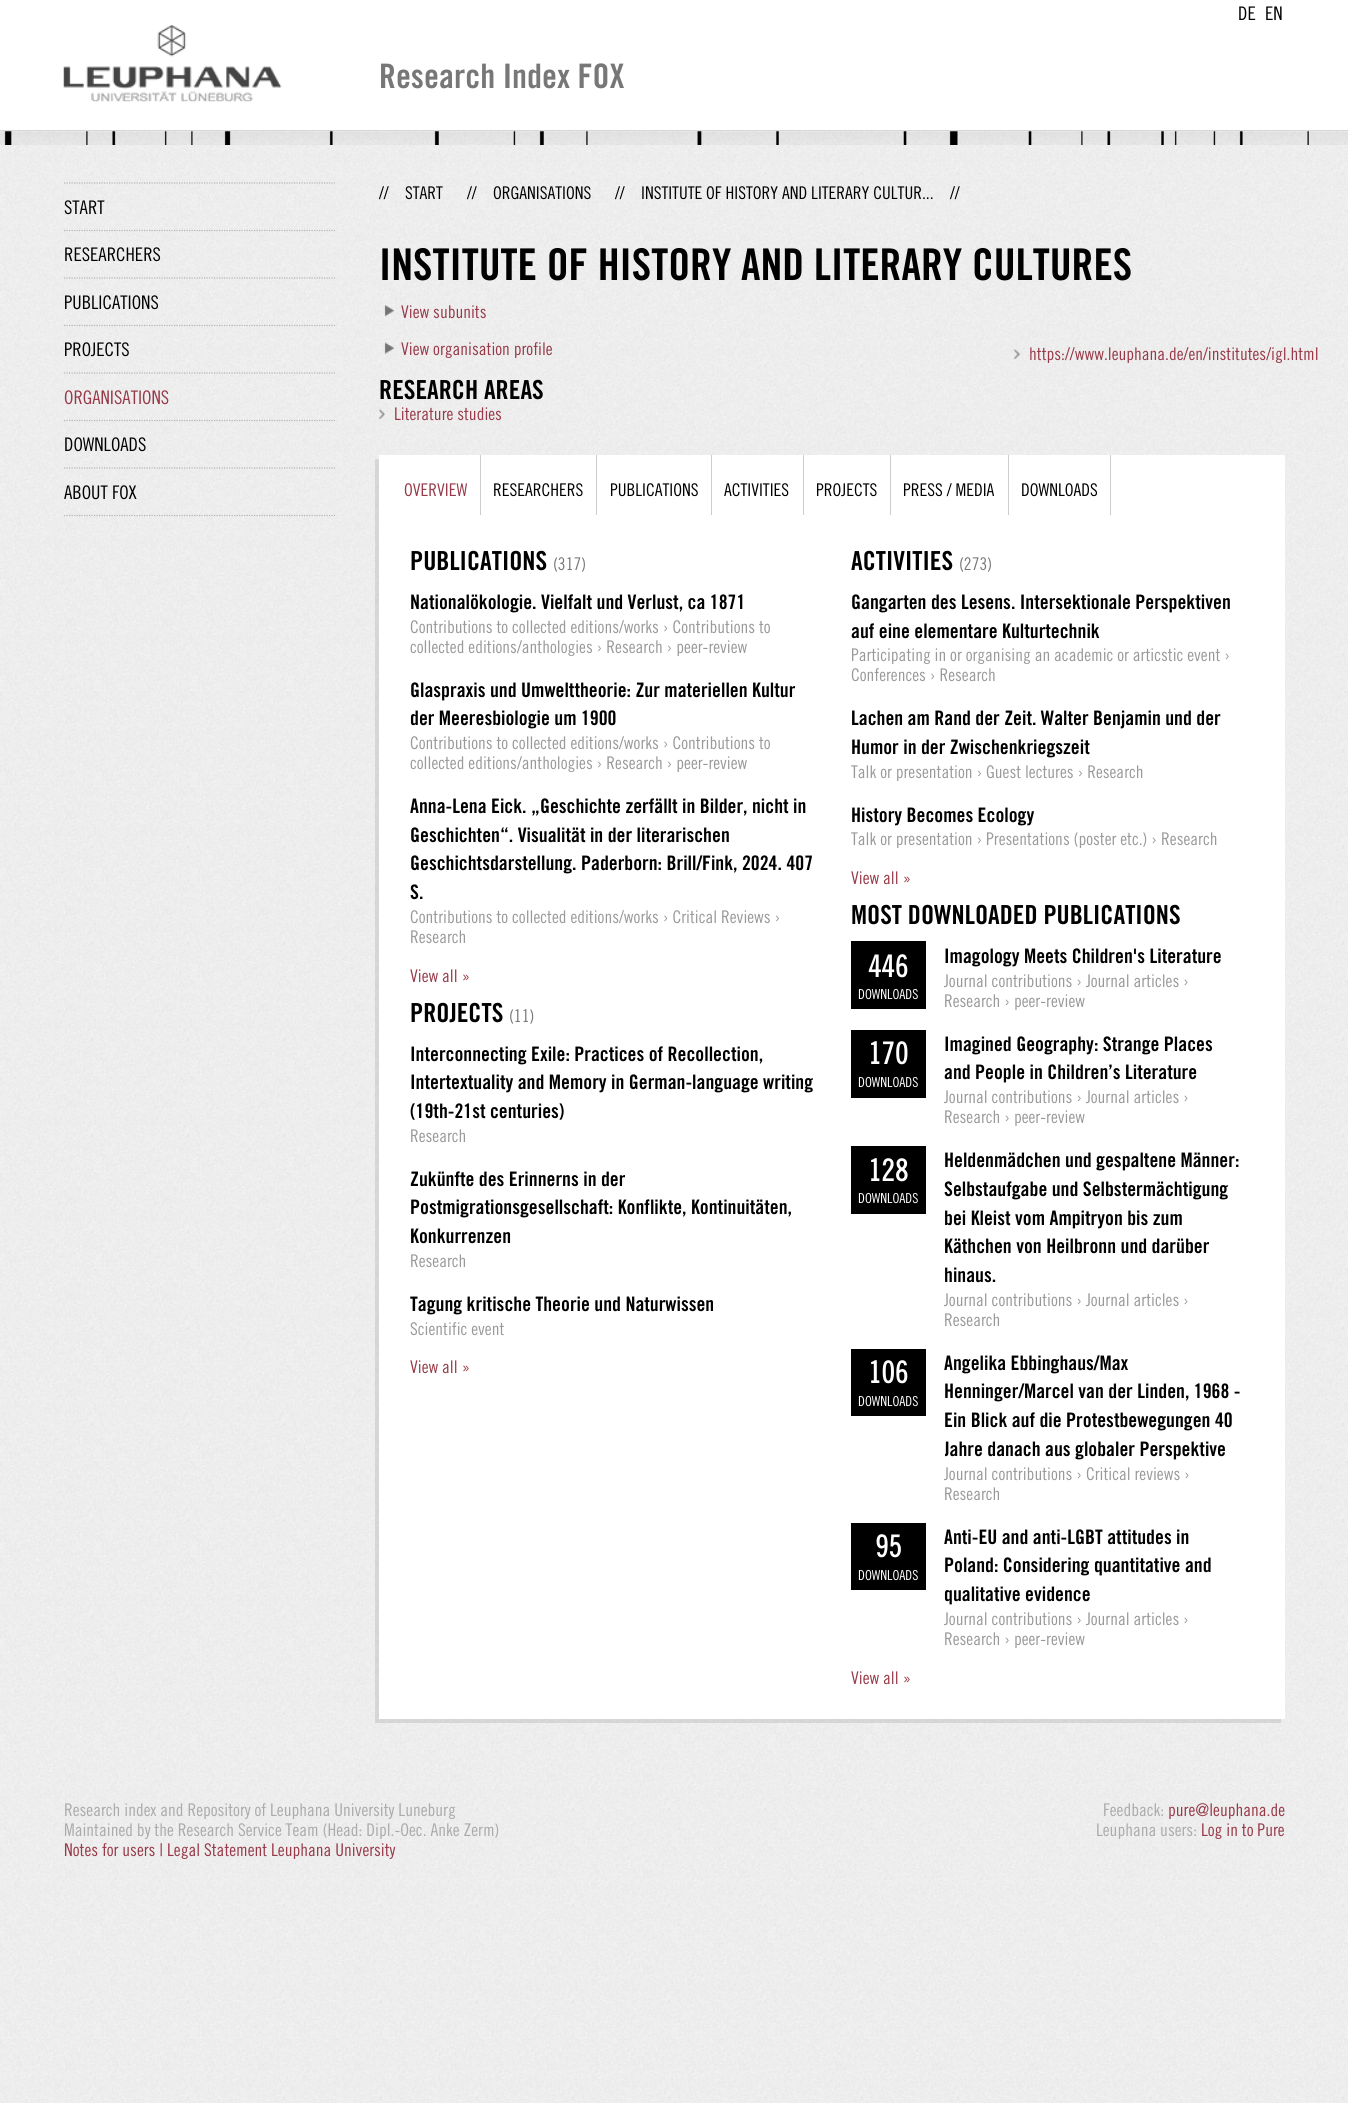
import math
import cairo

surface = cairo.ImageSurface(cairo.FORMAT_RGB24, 1348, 2103)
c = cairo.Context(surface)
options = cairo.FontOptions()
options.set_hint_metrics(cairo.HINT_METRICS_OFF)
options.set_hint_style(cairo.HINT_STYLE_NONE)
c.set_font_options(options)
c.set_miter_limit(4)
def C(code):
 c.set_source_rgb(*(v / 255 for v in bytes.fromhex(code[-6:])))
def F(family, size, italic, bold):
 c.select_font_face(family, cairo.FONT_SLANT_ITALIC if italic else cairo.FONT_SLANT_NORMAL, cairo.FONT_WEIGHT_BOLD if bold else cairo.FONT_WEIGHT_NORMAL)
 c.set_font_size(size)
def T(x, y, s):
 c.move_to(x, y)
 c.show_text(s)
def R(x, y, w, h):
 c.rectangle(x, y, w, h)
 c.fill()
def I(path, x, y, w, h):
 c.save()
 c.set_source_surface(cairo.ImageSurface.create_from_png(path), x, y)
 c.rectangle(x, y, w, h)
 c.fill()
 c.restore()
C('ffffff')
c.paint()
I('1.png',0,145,1348,1958)
C('d6d6d6')
R(0,130,1348,1)
F('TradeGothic',18.75,0,0)
C('000000')
T(1238,20,'DE')
T(1265,20,'EN')
I('2.png',63,25,219,77)
F('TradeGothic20',33.75,0,1)
C('777777')
T(379,88,'Research Index FOX')
I('3.png',0,131,1348,14)
c.new_path()
c.move_to(64,515.5)
c.line_to(335,515.5)
C('b5b5b5')
c.set_line_width(1.2)
c.set_dash([1.25,1.25])
c.stroke()
c.new_path()
c.move_to(64,183)
c.line_to(335,183)
c.stroke()
F('TradeGothic',18.75,0,0)
C('000000')
T(64,214,'START')
c.new_path()
c.move_to(64,230.5)
c.line_to(335,230.5)
C('b5b5b5')
c.stroke()
C('000000')
T(64,261,'RESEARCHERS')
c.new_path()
c.move_to(64,278)
c.line_to(335,278)
C('b5b5b5')
c.stroke()
C('000000')
T(64,309,'PUBLICATIONS')
c.new_path()
c.move_to(64,325.5)
c.line_to(335,325.5)
C('b5b5b5')
c.stroke()
C('000000')
T(64,356,'PROJECTS')
c.new_path()
c.move_to(64,373)
c.line_to(335,373)
C('b5b5b5')
c.stroke()
C('973948')
T(64,404,'ORGANISATIONS')
c.new_path()
c.move_to(64,420.5)
c.line_to(335,420.5)
C('b5b5b5')
c.stroke()
C('000000')
T(64,451,'DOWNLOADS')
c.new_path()
c.move_to(64,468)
c.line_to(335,468)
C('b5b5b5')
c.stroke()
C('000000')
T(64,499,'ABOUT FOX')
F('TradeGothic',17.5,0,0)
T(379,199,'//')
T(405,199,'START')
T(467,199,'//')
T(493,199,'ORGANISATIONS')
T(615,199,'//')
T(641,199,'INSTITUTE OF HISTORY AND LITERARY CULTUR...')
T(950,199,'//')
F('TradeGothic20',43.75,0,1)
T(379,280,'INSTITUTE OF HISTORY AND LITERARY CULTURES')
I('4.png',384,304,11,13)
F('TradeGothic',17.5,0,0)
C('973948')
T(401,318,'View subunits')
I('5.png',384,342,10,12)
T(401,355,'View organisation profile')
F('TradeGothic20',26.25,0,1)
C('000000')
T(379,399,'RESEARCH AREAS')
I('6.png',379,408,6,12)
F('TradeGothic',17.5,0,0)
C('973948')
T(394,420,'Literature studies')
I('7.png',1013,348,7,12)
T(1029,360,'https://www.leuphana.de/en/institutes/igl.html')
c.set_source_rgba(0,0,0,0.1)
c.new_path()
c.move_to(375,459)
c.line_to(375,1723)
c.line_to(1281,1723)
c.line_to(1281,1719)
c.line_to(379,1719)
c.line_to(379,459)
c.close_path()
c.fill()
C('ffffff')
R(379,455,906,1264)
C('cdcdcd')
R(480,455,1,60)
C('973948')
T(404,496,'OVERVIEW')
C('cdcdcd')
R(596,455,1,60)
C('000000')
T(493,496,'RESEARCHERS')
C('cdcdcd')
R(711,455,1,60)
C('000000')
T(610,496,'PUBLICATIONS')
C('cdcdcd')
R(803,455,1,60)
C('000000')
T(724,496,'ACTIVITIES')
C('cdcdcd')
R(890,455,1,60)
C('000000')
T(816,496,'PROJECTS')
C('cdcdcd')
R(1008,455,1,60)
C('000000')
T(903,496,'PRESS / MEDIA')
C('cdcdcd')
R(1110,455,1,60)
C('000000')
T(1021,496,'DOWNLOADS')
F('TradeGothic20',26.25,0,1)
T(410,570,'PUBLICATIONS')
F('TradeGothic',17.5,0,0)
C('777777')
T(553,570,'(317)')
F('TradeGothic20',20,0,1)
C('000000')
T(410,609,'Nationalökologie. Vielfalt und Verlust, ca 1871')
F('TradeGothic',17.5,0,0)
C('999999')
T(410,633,'Contributions to collected editions/works › Contributions to')
T(410,653,'collected editions/anthologies › Research › peer-review')
F('TradeGothic20',20,0,1)
C('000000')
T(410,697,'Glaspraxis und Umwelttheorie: Zur materiellen Kultur')
T(410,725,'der Meeresbiologie um 1900')
F('TradeGothic',17.5,0,0)
C('999999')
T(410,749,'Contributions to collected editions/works › Contributions to')
T(410,769,'collected editions/anthologies › Research › peer-review')
F('TradeGothic20',20,0,1)
C('000000')
T(410,813,'Anna-Lena Eick. „Geschichte zerfällt in Bilder, nicht in')
T(410,842,'Geschichten“. Visualität in der literarischen')
T(410,870,'Geschichtsdarstellung. Paderborn: Brill/Fink, 2024. 407')
T(410,899,'S.')
F('TradeGothic',17.5,0,0)
C('999999')
T(410,923,'Contributions to collected editions/works › Critical Reviews ›')
T(410,943,'Research')
C('973948')
T(410,982,'View all »')
F('TradeGothic20',26.25,0,1)
C('000000')
T(410,1022,'PROJECTS')
F('TradeGothic',17.5,0,0)
C('777777')
T(509,1022,'(11)')
F('TradeGothic20',20,0,1)
C('000000')
T(410,1061,'Interconnecting Exile: Practices of Recollection,')
T(410,1089,'Intertextuality and Memory in German-language writing')
T(410,1118,'(19th-21st centuries)')
F('TradeGothic',17.5,0,0)
C('999999')
T(410,1142,'Research')
F('TradeGothic20',20,0,1)
C('000000')
T(410,1186,'Zukünfte des Erinnerns in der')
T(410,1214,'Postmigrationsgesellschaft: Konflikte, Kontinuitäten,')
T(410,1243,'Konkurrenzen')
F('TradeGothic',17.5,0,0)
C('999999')
T(410,1267,'Research')
F('TradeGothic20',20,0,1)
C('000000')
T(410,1311,'Tagung kritische Theorie und Naturwissen')
F('TradeGothic',17.5,0,0)
C('999999')
T(410,1335,'Scientific event')
C('973948')
T(410,1373,'View all »')
F('TradeGothic20',26.25,0,1)
C('000000')
T(851,570,'ACTIVITIES')
F('TradeGothic',17.5,0,0)
C('777777')
T(959,570,'(273)')
F('TradeGothic20',20,0,1)
C('000000')
T(851,609,'Gangarten des Lesens. Intersektionale Perspektiven')
T(851,638,'auf eine elementare Kulturtechnik')
F('TradeGothic',17.5,0,0)
C('999999')
T(851,661,'Participating in or organising an academic or articstic event ›')
T(851,681,'Conferences › Research')
F('TradeGothic20',20,0,1)
C('000000')
T(851,725,'Lachen am Rand der Zeit. Walter Benjamin und der')
T(851,754,'Humor in der Zwischenkriegszeit')
F('TradeGothic',17.5,0,0)
C('999999')
T(851,778,'Talk or presentation › Guest lectures › Research')
F('TradeGothic20',20,0,1)
C('000000')
T(851,822,'History Becomes Ecology')
F('TradeGothic',17.5,0,0)
C('999999')
T(851,845,'Talk or presentation › Presentations (poster etc.) › Research')
C('973948')
T(851,884,'View all »')
F('TradeGothic20',26.25,0,1)
C('000000')
T(851,924,'MOST DOWNLOADED PUBLICATIONS')
R(851,941,75,68)
F('TradeGothic',30,0,1)
C('ffffff')
T(868,977,'446')
F('TradeGothic',13.75,0,0)
T(858,999,'DOWNLOADS')
F('TradeGothic20',20,0,1)
C('000000')
T(944,963,'Imagology Meets Children\'s Literature')
F('TradeGothic',17.5,0,0)
C('999999')
T(944,987,'Journal contributions › Journal articles ›')
T(944,1007,'Research › peer-review')
C('000000')
R(851,1030,75,68)
F('TradeGothic',30,0,1)
C('ffffff')
T(868,1064,'170')
F('TradeGothic',13.75,0,0)
T(858,1087,'DOWNLOADS')
F('TradeGothic20',20,0,1)
C('000000')
T(944,1051,'Imagined Geography: Strange Places')
T(944,1079,'and People in Children’s Literature')
F('TradeGothic',17.5,0,0)
C('999999')
T(944,1103,'Journal contributions › Journal articles ›')
T(944,1123,'Research › peer-review')
C('000000')
R(851,1146,75,68)
F('TradeGothic',30,0,1)
C('ffffff')
T(868,1181,'128')
F('TradeGothic',13.75,0,0)
T(858,1203,'DOWNLOADS')
F('TradeGothic20',20,0,1)
C('000000')
T(944,1167,'Heldenmädchen und gespaltene Männer:')
T(944,1196,'Selbstaufgabe und Selbstermächtigung')
T(944,1225,'bei Kleist vom Ampitryon bis zum')
T(944,1253,'Käthchen von Heilbronn und darüber')
T(944,1282,'hinaus.')
F('TradeGothic',17.5,0,0)
C('999999')
T(944,1306,'Journal contributions › Journal articles ›')
T(944,1326,'Research')
C('000000')
R(851,1349,75,67)
F('TradeGothic',30,0,1)
C('ffffff')
T(868,1383,'106')
F('TradeGothic',13.75,0,0)
T(858,1406,'DOWNLOADS')
F('TradeGothic20',20,0,1)
C('000000')
T(944,1370,'Angelika Ebbinghaus/Max')
T(944,1398,'Henninger/Marcel van der Linden, 1968 -')
T(944,1427,'Ein Blick auf die Protestbewegungen 40')
c.save()
c.rectangle(945,1349,299,155)
c.clip()
T(944,1456,'Jahre danach aus globaler Perspektive')
c.restore()
F('TradeGothic',17.5,0,0)
C('999999')
T(944,1480,'Journal contributions › Critical reviews ›')
T(944,1500,'Research')
C('000000')
R(851,1523,75,67)
F('TradeGothic',30,0,1)
C('ffffff')
T(875,1557,'95')
F('TradeGothic',13.75,0,0)
T(858,1580,'DOWNLOADS')
F('TradeGothic20',20,0,1)
C('000000')
T(944,1544,'Anti-EU and anti-LGBT attitudes in')
T(944,1572,'Poland: Considering quantitative and')
T(944,1601,'qualitative evidence')
F('TradeGothic',17.5,0,0)
C('999999')
T(944,1625,'Journal contributions › Journal articles ›')
T(944,1645,'Research › peer-review')
C('973948')
T(851,1684,'View all »')
C('aaaaaa')
T(64,1816,'Research index and Repository of Leuphana University Luneburg')
T(64,1836,'Maintained by the Research Service Team (Head: Dipl.-Oec. Anke Zerm)')
C('973948')
T(64,1856,'Notes for users | Legal Statement Leuphana University')
C('aaaaaa')
T(1103,1816,'Feedback:')
C('973948')
T(1168,1816,'pure@leuphana.de')
C('aaaaaa')
T(1096,1836,'Leuphana users:')
C('973948')
T(1201,1836,'Log in to Pure')
surface.write_to_png('o.png')
